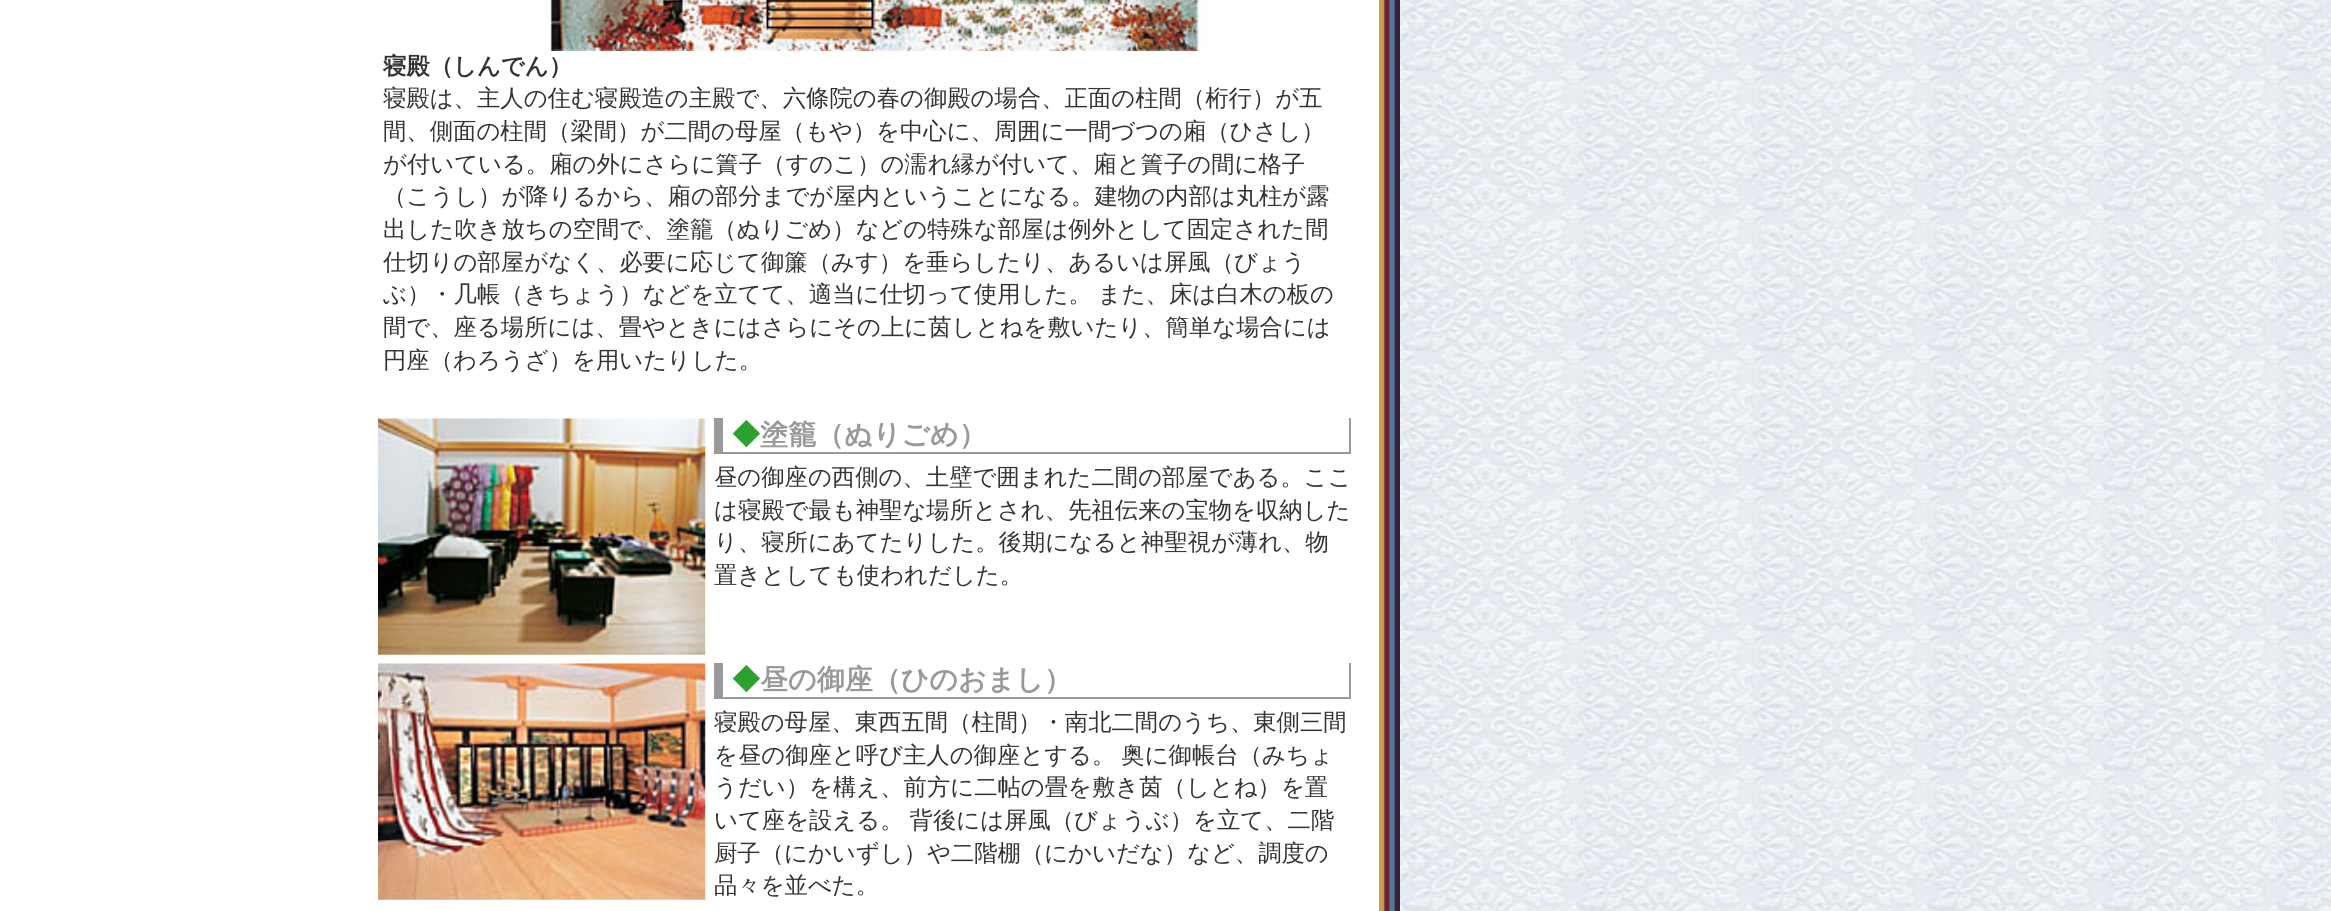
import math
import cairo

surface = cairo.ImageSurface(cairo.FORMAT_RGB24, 2331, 911)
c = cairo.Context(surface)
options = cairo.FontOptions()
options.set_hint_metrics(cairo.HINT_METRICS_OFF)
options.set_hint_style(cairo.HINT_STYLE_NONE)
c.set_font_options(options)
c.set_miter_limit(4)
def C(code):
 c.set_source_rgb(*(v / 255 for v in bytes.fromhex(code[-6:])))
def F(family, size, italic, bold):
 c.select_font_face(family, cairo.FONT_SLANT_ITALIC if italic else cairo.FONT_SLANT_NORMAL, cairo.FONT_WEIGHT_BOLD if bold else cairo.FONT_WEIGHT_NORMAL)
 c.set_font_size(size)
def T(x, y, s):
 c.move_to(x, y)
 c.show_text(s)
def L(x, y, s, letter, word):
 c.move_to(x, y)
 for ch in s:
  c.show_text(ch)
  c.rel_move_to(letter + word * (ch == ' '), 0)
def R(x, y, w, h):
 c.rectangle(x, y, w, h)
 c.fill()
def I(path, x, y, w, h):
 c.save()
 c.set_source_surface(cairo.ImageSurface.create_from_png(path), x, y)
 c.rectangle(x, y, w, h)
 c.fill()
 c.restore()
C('ffffff')
c.paint()
I('1.png',1400,0,931,911)
I('2.png',550,0,659,51)
F('WenQuanYi Zen Hei',23.35,0,1)
C('333333')
T(383,74,'寝殿（しんでん）')
F('WenQuanYi Zen Hei Medium',23.35,0,0)
T(383,106,'寝殿は、主人の住む寝殿造の主殿で、六條院の春の御殿の場合、正面の柱間（桁行）が五')
T(383,139,'間、側面の柱間（梁間）が二間の母屋（もや）を中心に、周囲に一間づつの廂（ひさし）')
T(383,172,'が付いている。廂の外にさらに簀子（すのこ）の濡れ縁が付いて、廂と簀子の間に格子')
T(383,204,'（こうし）が降りるから、廂の部分までが屋内ということになる。建物の内部は丸柱が露')
T(383,237,'出した吹き放ちの空間で、塗籠（ぬりごめ）などの特殊な部屋は例外として固定された間')
T(383,270,'仕切りの部屋がなく、必要に応じて御簾（みす）を垂らしたり、あるいは屏風（びょう')
L(383,302,'ぶ）・几帳（きちょう）などを立てて、適当に仕切って使用した。 また、床は白木の板の',0,-1)
T(383,335,'間で、座る場所には、畳やときにはさらにその上に茵しとねを敷いたり、簡単な場合には')
T(383,368,'円座（わろうざ）を用いたりした。')
I('3.png',378,418,328,237)
C('999999')
R(1349,418,2,35)
R(714,452,637,2)
R(714,418,9,34)
F('WenQuanYi Zen Hei',28,0,1)
C('2da130')
T(732,444,'◆')
C('999999')
T(760,444,'塗籠（ぬりごめ）')
F('WenQuanYi Zen Hei Medium',23.35,0,0)
C('333333')
T(714,485,'昼の御座の西側の、土壁で囲まれた二間の部屋である。ここ')
T(714,518,'は寝殿で最も神聖な場所とされ、先祖伝来の宝物を収納した')
T(714,550,'り、寝所にあてたりした。後期になると神聖視が薄れ、物')
T(714,583,'置きとしても使われだした。')
I('4.png',378,663,328,237)
C('999999')
R(1349,663,2,35)
R(714,697,637,2)
R(714,663,9,34)
F('WenQuanYi Zen Hei',28,0,1)
C('2da130')
T(732,689,'◆')
C('999999')
T(760,689,'昼の御座（ひのおまし）')
F('WenQuanYi Zen Hei Medium',23.35,0,0)
C('333333')
T(714,730,'寝殿の母屋、東西五間（柱間）・南北二間のうち、東側三間')
L(714,763,'を昼の御座と呼び主人の御座とする。 奥に御帳台（みちょ',0,-1)
T(714,795,'うだい）を構え、前方に二帖の畳を敷き茵（しとね）を置')
L(714,828,'いて座を設える。 背後には屏風（びょうぶ）を立て、二階',0,-1)
T(714,861,'厨子（にかいずし）や二階棚（にかいだな）など、調度の')
T(714,893,'品々を並べた。')
I('5.png',1379,0,21,911)
surface.write_to_png('o.png')
